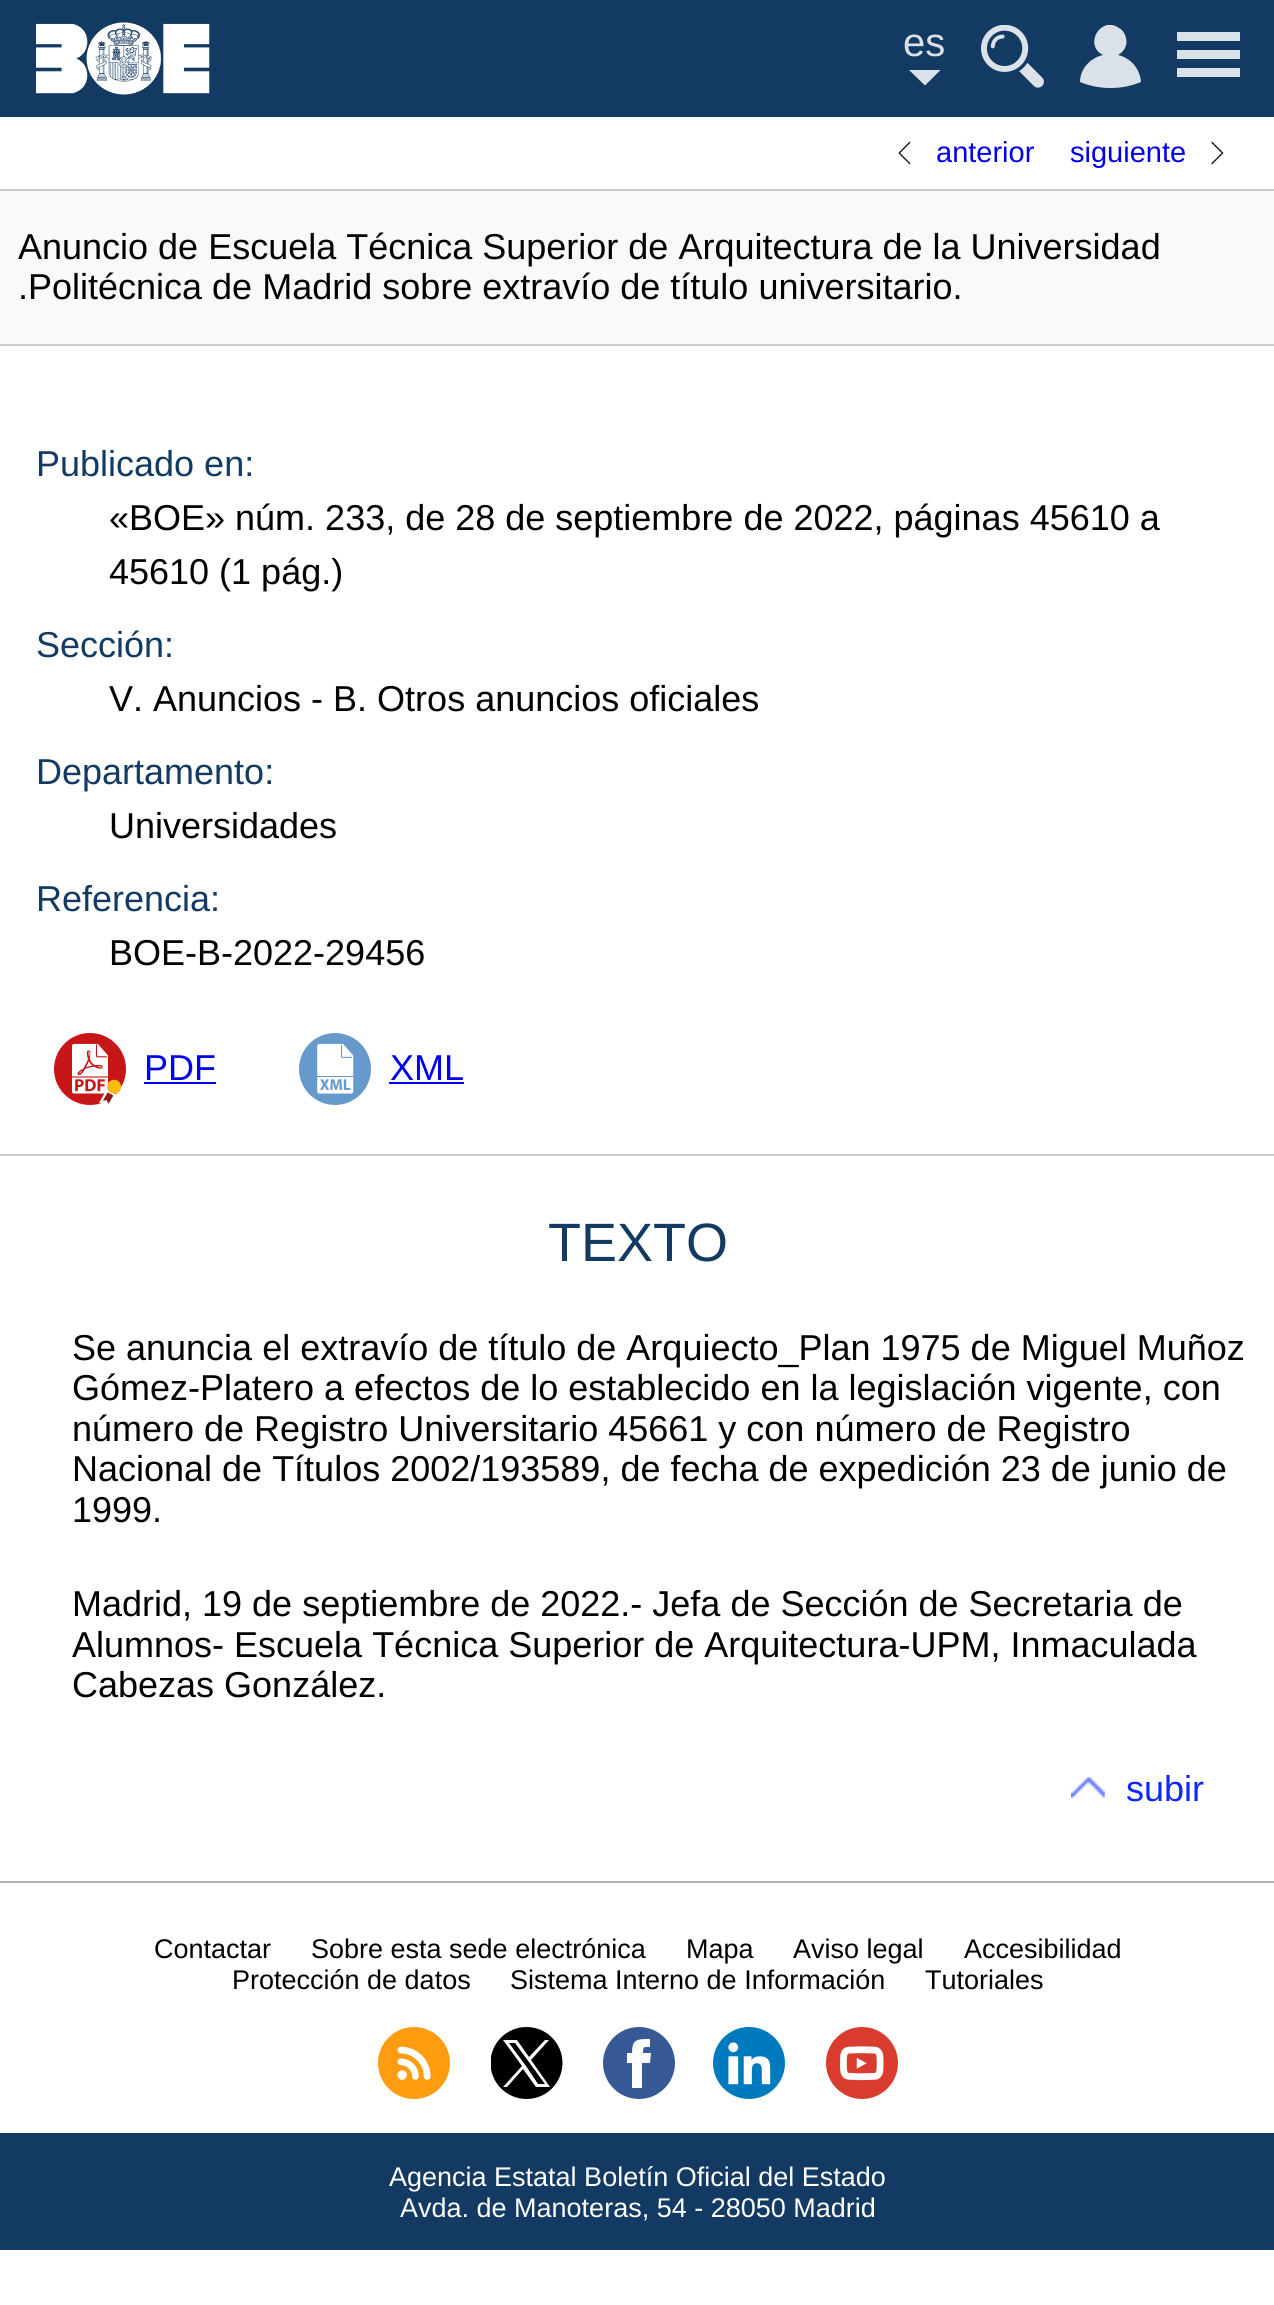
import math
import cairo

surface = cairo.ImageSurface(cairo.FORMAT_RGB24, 1274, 2305)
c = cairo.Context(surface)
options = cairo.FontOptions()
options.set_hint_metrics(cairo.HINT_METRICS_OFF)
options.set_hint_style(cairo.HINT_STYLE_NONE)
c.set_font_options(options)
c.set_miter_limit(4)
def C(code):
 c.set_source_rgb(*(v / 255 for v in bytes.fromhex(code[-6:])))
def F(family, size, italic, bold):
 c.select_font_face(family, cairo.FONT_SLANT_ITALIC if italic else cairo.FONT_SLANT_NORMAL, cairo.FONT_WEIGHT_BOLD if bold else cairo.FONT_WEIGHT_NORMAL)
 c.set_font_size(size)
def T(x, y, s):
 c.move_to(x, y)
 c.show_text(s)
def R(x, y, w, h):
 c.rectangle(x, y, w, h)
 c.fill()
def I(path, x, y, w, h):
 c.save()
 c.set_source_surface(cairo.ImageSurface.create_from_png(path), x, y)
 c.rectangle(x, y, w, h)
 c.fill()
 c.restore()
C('ffffff')
c.paint()
C('123a63')
R(0,0,1274,117)
I('1.png',36,22,174,73)
F('Liberation Sans',40,0,0)
C('dbe1e8')
T(903,56,'es')
c.new_path()
c.move_to(909,70)
c.line_to(940.5,70)
c.line_to(925,85.5)
c.close_path()
c.fill()
I('2.png',981,25,63,63)
c.save()
c.rectangle(1080,25,61,63)
c.clip()
c.new_path()
c.move_to(1118,55)
c.curve_to(1124,52,1128,45,1126,38)
c.curve_to(1125,34,1123,30,1119,28)
c.curve_to(1101,15,1083,45,1103,55)
c.curve_to(1090,58,1080,69,1080,82)
c.curve_to(1099,90,1122,90,1141,82)
c.curve_to(1140,69,1131,58,1118,55)
c.close_path()
c.fill()
c.restore()
R(1177,32,63,9)
R(1177,50,63,9)
R(1177,68,63,9)
I('3.png',898,141,13,24)
F('Liberation Sans',29,0,0)
C('0000ee')
T(936,162,'anterior')
T(1070,162,'siguiente')
I('4.png',1211,141,13,24)
C('cccccc')
R(0,189,1274,2)
R(0,1154,1274,2)
C('f9f9f9')
R(0,191,1274,156)
C('cccccc')
R(0,344,1274,2)
F('Liberation Sans',36,0,0)
C('000000')
T(18,259,'Anuncio de Escuela Técnica Superior de Arquitectura de la Universidad')
T(18,299,'.Politécnica de Madrid sobre extravío de título universitario.')
C('123a63')
T(36,476,'Publicado en:')
C('000000')
T(109,530,'«BOE» núm. 233, de 28 de septiembre de 2022, páginas 45610 a')
T(109,584,'45610 (1 pág.)')
C('123a63')
T(36,657,'Sección:')
C('000000')
T(109,711,'V. Anuncios - B. Otros anuncios oficiales')
C('123a63')
T(36,784,'Departamento:')
C('000000')
T(109,838,'Universidades')
C('123a63')
T(36,911,'Referencia:')
C('000000')
T(109,965,'BOE-B-2022-29456')
I('5.png',54,1033,72,72)
C('0000ee')
T(144,1080,'PDF')
R(144,1082,72,2)
I('6.png',299,1033,72,72)
T(390,1080,'XML')
R(389,1082,75,2)
F('Liberation Sans',54,0,0)
C('123a63')
T(548,1261,'TEXTO')
F('Liberation Sans',36,0,0)
C('000000')
T(72,1360,'Se anuncia el extravío de título de Arquiecto_Plan 1975 de Miguel Muñoz')
T(72,1400,'Gómez-Platero a efectos de lo establecido en la legislación vigente, con')
T(72,1441,'número de Registro Universitario 45661 y con número de Registro')
T(72,1481,'Nacional de Títulos 2002/193589, de fecha de expedición 23 de junio de')
T(72,1522,'1999.')
T(72,1616,'Madrid, 19 de septiembre de 2022.- Jefa de Sección de Secretaria de')
T(72,1657,'Alumnos- Escuela Técnica Superior de Arquitectura-UPM, Inmaculada')
T(72,1697,'Cabezas González.')
I('7.png',1071,1777,34,22)
C('1127ff')
T(1126,1801,'subir')
C('aeaeae')
R(0,1881,1274,2)
F('Liberation Sans',27,0,0)
C('000000')
T(154,1958,'Contactar')
T(311,1958,'Sobre esta sede electrónica')
T(686,1958,'Mapa')
T(793,1958,'Aviso legal')
T(964,1958,'Accesibilidad')
T(232,1989,'Protección de datos')
T(510,1989,'Sistema Interno de Información')
T(925,1989,'Tutoriales')
I('8.png',378,2027,72,72)
c.save()
c.rectangle(491,2027,72,72)
c.clip()
c.arc(526.5,2063,36,0,2 * math.pi)
c.fill()
c.restore()
C('ffffff')
c.new_path()
c.move_to(531,2060)
c.line_to(549,2040)
c.line_to(545,2040)
c.line_to(529,2057)
c.line_to(517,2040)
c.line_to(503,2040)
c.line_to(522,2066)
c.line_to(503,2087)
c.line_to(507,2087)
c.line_to(523,2069)
c.line_to(536,2087)
c.line_to(550,2087)
c.close_path()
c.move_to(526,2066)
c.line_to(509,2043)
c.line_to(515,2043)
c.line_to(545,2084)
c.line_to(538,2084)
c.close_path()
c.fill()
C('375a96')
c.arc(639,2063,36,0,2 * math.pi)
c.fill()
C('ffffff')
c.set_fill_rule(cairo.FILL_RULE_EVEN_ODD)
c.new_path()
c.move_to(643,2053)
c.curve_to(643,2046,644,2047,650,2047)
c.line_to(650,2039)
c.curve_to(637,2039,632,2039,632,2053)
c.line_to(627,2053)
c.line_to(627,2063)
c.line_to(632,2063)
c.line_to(632,2088)
c.line_to(642,2088)
c.line_to(642,2063)
c.line_to(650,2063)
c.line_to(651,2053)
c.close_path()
c.fill()
I('9.png',713,2027,72,72)
I('10.png',826,2027,72,72)
C('123a63')
R(0,2133,1274,117)
C('ffffff')
T(389,2186,'Agencia Estatal Boletín Oficial del Estado')
T(400,2217,'Avda. de Manoteras, 54 - 28050 Madrid')
surface.write_to_png('o.png')
